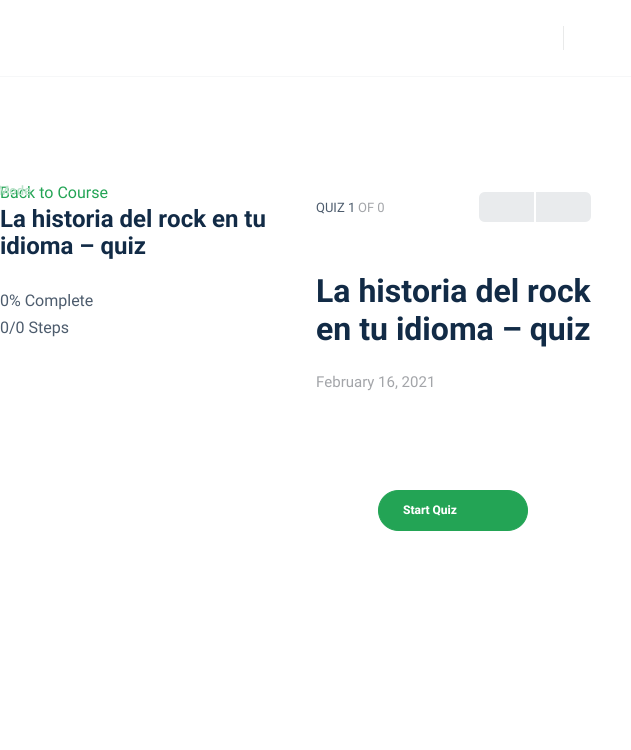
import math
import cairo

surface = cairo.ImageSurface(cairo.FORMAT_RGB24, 631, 750)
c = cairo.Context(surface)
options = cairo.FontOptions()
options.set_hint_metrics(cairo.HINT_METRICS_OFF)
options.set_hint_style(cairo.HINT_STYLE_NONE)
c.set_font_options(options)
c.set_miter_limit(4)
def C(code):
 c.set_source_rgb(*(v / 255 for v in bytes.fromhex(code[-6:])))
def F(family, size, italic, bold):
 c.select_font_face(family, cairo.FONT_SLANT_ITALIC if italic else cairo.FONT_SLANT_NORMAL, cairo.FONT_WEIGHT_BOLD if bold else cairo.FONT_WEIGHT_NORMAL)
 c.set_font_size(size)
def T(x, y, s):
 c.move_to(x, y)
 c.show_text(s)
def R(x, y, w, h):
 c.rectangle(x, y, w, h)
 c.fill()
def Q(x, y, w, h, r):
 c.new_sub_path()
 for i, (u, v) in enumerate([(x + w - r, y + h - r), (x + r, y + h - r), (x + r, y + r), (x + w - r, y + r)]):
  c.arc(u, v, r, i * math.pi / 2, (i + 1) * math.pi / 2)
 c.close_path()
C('ffffff')
c.paint()
C('f6f7f8')
R(0,76,631,1)
C('e9eaea')
R(563,26,1,24)
F('Roboto',16,0,0)
C('23a455')
T(0,198,'Back to Course')
F('Roboto Medium',13,0,0)
C('b9e2c9')
T(-2,195,'Mode')
F('Roboto',24,0,1)
C('122b46')
T(0,227,'La historia del rock en tu')
T(0,254,'idioma – quiz')
F('Roboto',16,0,0)
C('4d5c6d')
T(0,306,'0% Complete')
T(0,333,'0/0 Steps')
F('Roboto',13,0,0)
T(316,212,'QUIZ 1')
C('a3a5a9')
T(358,212,'OF 0')
C('e9ebed')
c.new_path()
c.move_to(485,192)
c.line_to(534,192)
c.line_to(534,222)
c.line_to(485,222)
c.curve_to(481.5,222,479,219.5,479,216)
c.line_to(479,198)
c.curve_to(479,194.5,481.5,192,485,192)
c.close_path()
c.fill()
c.new_path()
c.move_to(536,192)
c.line_to(585,192)
c.curve_to(588.5,192,591,194.5,591,198)
c.line_to(591,216)
c.curve_to(591,219.5,588.5,222,585,222)
c.line_to(536,222)
c.close_path()
c.fill()
F('Roboto',32,0,1)
C('122b46')
T(316,302,'La historia del rock')
T(316,340,'en tu idioma – quiz')
F('Roboto',15,0,0)
C('a3a5a9')
T(316,387,'February 16, 2021')
C('23a455')
Q(378.5,490.5,149,40,20)
c.fill_preserve()
c.set_line_width(1)
c.stroke()
F('Roboto ExtraBold',12,0,0)
C('ffffff')
T(403,514,'Start Quiz')
surface.write_to_png('o.png')
